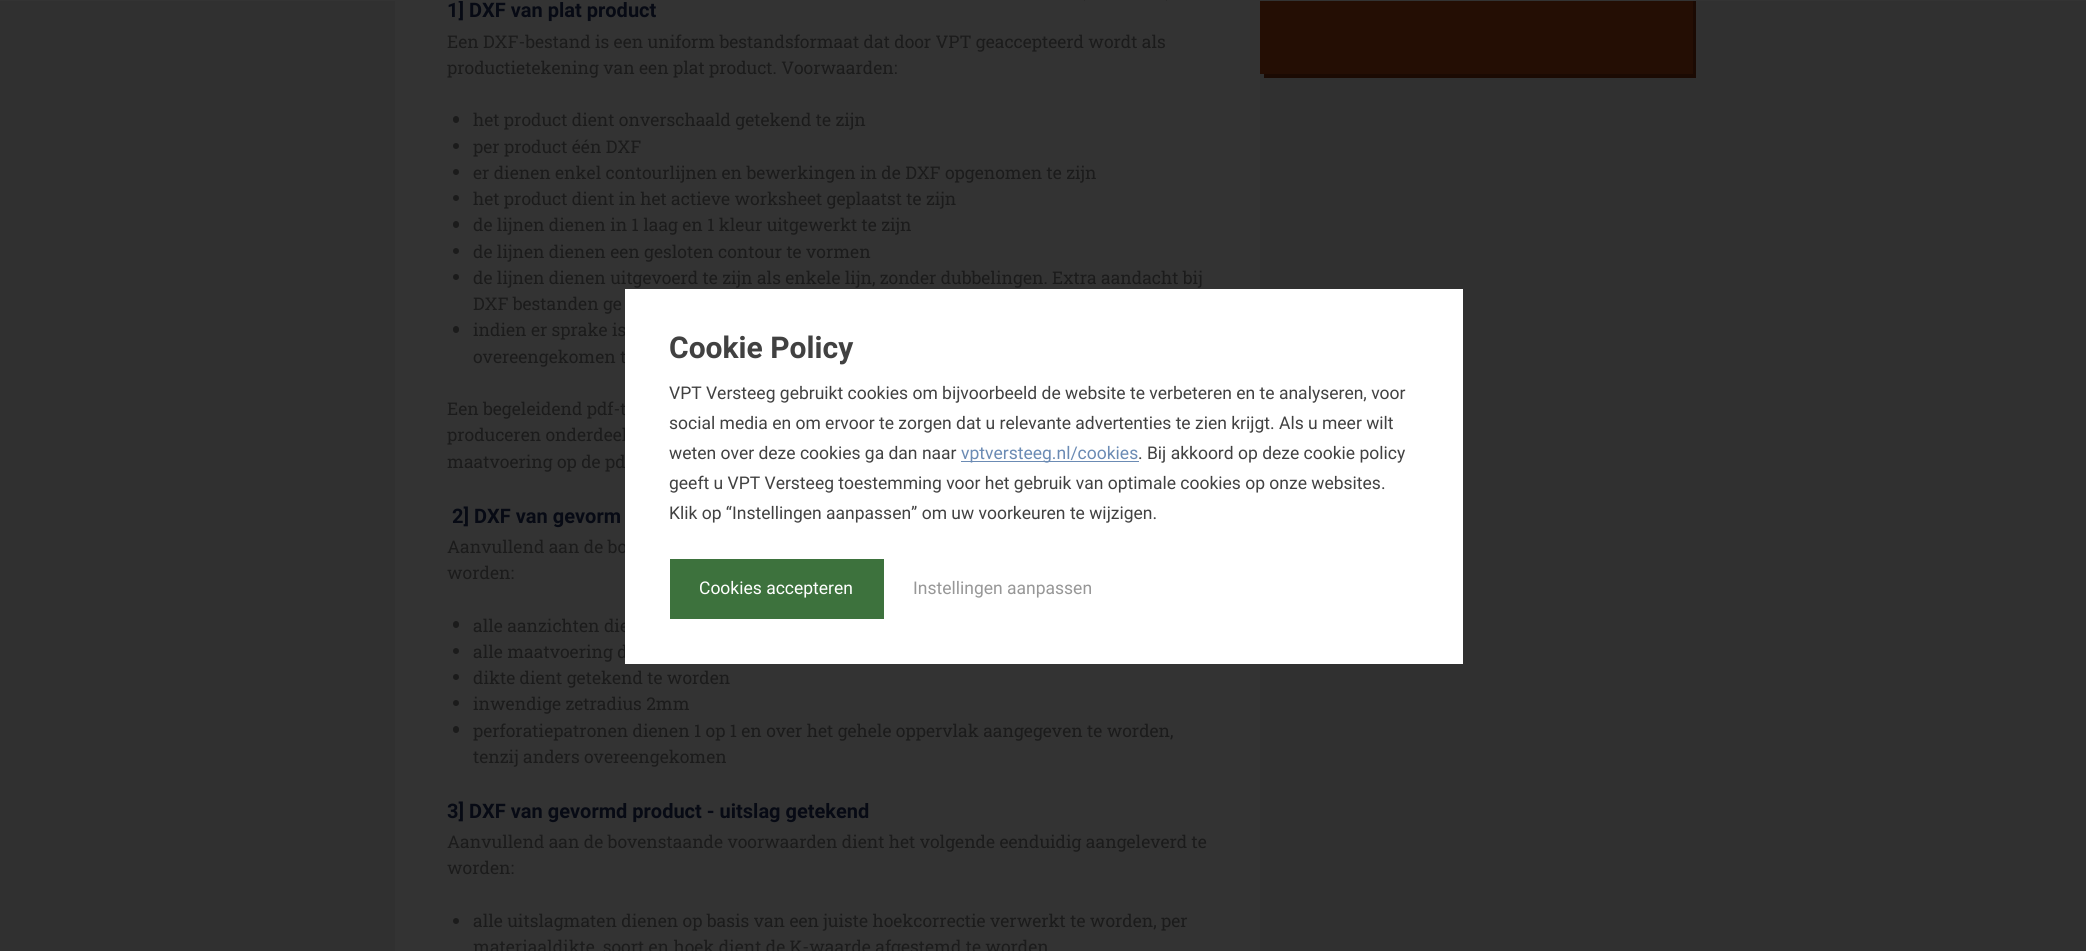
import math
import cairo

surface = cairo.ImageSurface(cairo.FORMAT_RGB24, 2086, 951)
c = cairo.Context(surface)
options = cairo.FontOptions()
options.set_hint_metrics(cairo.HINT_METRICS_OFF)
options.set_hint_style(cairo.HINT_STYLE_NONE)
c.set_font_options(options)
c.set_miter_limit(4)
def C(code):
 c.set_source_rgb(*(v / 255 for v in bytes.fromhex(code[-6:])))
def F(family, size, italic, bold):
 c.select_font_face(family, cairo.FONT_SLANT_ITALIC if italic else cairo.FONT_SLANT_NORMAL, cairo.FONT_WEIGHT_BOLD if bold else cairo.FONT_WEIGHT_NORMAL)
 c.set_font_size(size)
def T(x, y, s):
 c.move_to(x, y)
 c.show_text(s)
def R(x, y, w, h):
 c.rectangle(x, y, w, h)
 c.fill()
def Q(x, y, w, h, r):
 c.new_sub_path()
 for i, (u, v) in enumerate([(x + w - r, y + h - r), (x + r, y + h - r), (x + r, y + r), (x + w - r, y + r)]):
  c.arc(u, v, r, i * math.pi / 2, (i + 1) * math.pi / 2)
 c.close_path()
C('303030')
c.paint()
C('333333')
R(395,1,865,950)
F('Roboto',20,0,1)
C('070a14')
T(447,17,'1] DXF van plat product')
C('1b0a03')
c.new_path()
c.move_to(1264,74)
c.line_to(1264,78)
c.line_to(1696,78)
c.line_to(1696,-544)
c.line_to(1692,-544)
c.line_to(1692,74)
c.close_path()
c.fill()
C('333333')
R(0,0,2086,1)
C('2c2c2c')
R(1166,0,1,1)
R(1084,0,1,1)
F('Roboto Slab',17.5,0,0)
C('1b1b1b')
T(447,48,'Een DXF-bestand is een uniform bestandsformaat dat door VPT geaccepteerd wordt als')
T(447,74,'productietekening van een plat product. Voorwaarden:')
Q(453,116,6,7,3)
c.fill()
T(473,126,'het product dient onverschaald getekend te zijn')
c.new_path()
c.arc(456,146,3,0,2 * math.pi)
c.fill()
T(473,153,'per product één DXF')
c.new_path()
c.arc(456,172,3,0,2 * math.pi)
c.fill()
T(473,179,'er dienen enkel contourlijnen en bewerkingen in de DXF opgenomen te zijn')
c.new_path()
c.arc(456,198,3,0,2 * math.pi)
c.fill()
T(473,205,'het product dient in het actieve worksheet geplaatst te zijn')
Q(453,221,6,7,3)
c.fill()
T(473,231,'de lijnen dienen in 1 laag en 1 kleur uitgewerkt te zijn')
c.new_path()
c.arc(456,251,3,0,2 * math.pi)
c.fill()
T(473,258,'de lijnen dienen een gesloten contour te vormen')
c.new_path()
c.arc(456,277,3,0,2 * math.pi)
c.fill()
T(473,284,'de lijnen dienen uitgevoerd te zijn als enkele lijn, zonder dubbelingen. Extra aandacht bij')
T(473,310,'DXF bestanden ge')
Q(453,326,6,7,3)
c.fill()
T(473,336,'indien er sprake is')
T(473,363,'overeengekomen t')
T(447,415,'Een begeleidend pdf-t')
T(447,441,'produceren onderdeel')
T(447,468,'maatvoering op de pd')
F('Roboto',20,0,1)
C('070a14')
T(452,523,'2] DXF van gevorm')
F('Roboto Slab',17.5,0,0)
C('1b1b1b')
T(447,553,'Aanvullend aan de bo')
T(447,579,'worden:')
Q(453,621,6,7,3)
c.fill()
T(473,632,'alle aanzichten die')
c.new_path()
c.arc(456,651,3,0,2 * math.pi)
c.fill()
T(473,658,'alle maatvoering d')
c.new_path()
c.arc(456,677,3,0,2 * math.pi)
c.fill()
T(473,684,'dikte dient getekend te worden')
c.new_path()
c.arc(456,703,3,0,2 * math.pi)
c.fill()
T(473,710,'inwendige zetradius 2mm')
Q(453,726,6,7,3)
c.fill()
T(473,737,'perforatiepatronen dienen 1 op 1 en over het gehele oppervlak aangegeven te worden,')
T(473,763,'tenzij anders overeengekomen')
F('Roboto',20,0,1)
C('070a14')
T(447,818,'3] DXF van gevormd product - uitslag getekend')
F('Roboto Slab',17.5,0,0)
C('1b1b1b')
T(447,848,'Aanvullend aan de bovenstaande voorwaarden dient het volgende eenduidig aangeleverd te')
T(447,874,'worden:')
c.new_path()
c.arc(456,921,3,0,2 * math.pi)
c.fill()
T(473,927,'alle uitslagmaten dienen op basis van een juiste hoekcorrectie verwerkt te worden, per')
T(473,953,'materiaaldikte, soort en hoek dient de K-waarde afgestemd te worden')
C('240e04')
R(1260,1,433,73)
C('ffffff')
R(625,289,838,375)
F('Roboto',30,0,1)
C('414141')
T(669,358,'Cookie Policy')
F('Roboto',17.5,0,0)
T(669,399,'VPT Versteeg gebruikt cookies om bijvoorbeeld de website te verbeteren en te analyseren, voor')
T(669,429,'social media en om ervoor te zorgen dat u relevante advertenties te zien krijgt. Als u meer wilt')
T(669,459,'weten over deze cookies ga dan naar')
C('6b8bb4')
R(961,461,178,1)
T(961,459,'vptversteeg.nl/cookies')
C('414141')
T(1138,459,'. Bij akkoord op deze cookie policy')
T(669,489,'geeft u VPT Versteeg toestemming voor het gebruik van optimale cookies op onze websites.')
T(669,519,'Klik op “Instellingen aanpassen” om uw voorkeuren te wijzigen.')
C('3d723d')
R(670,559,214,60)
C('ffffff')
T(699,594,'Cookies accepteren')
C('979797')
T(913,594,'Instellingen aanpassen')
surface.write_to_png('o.png')
